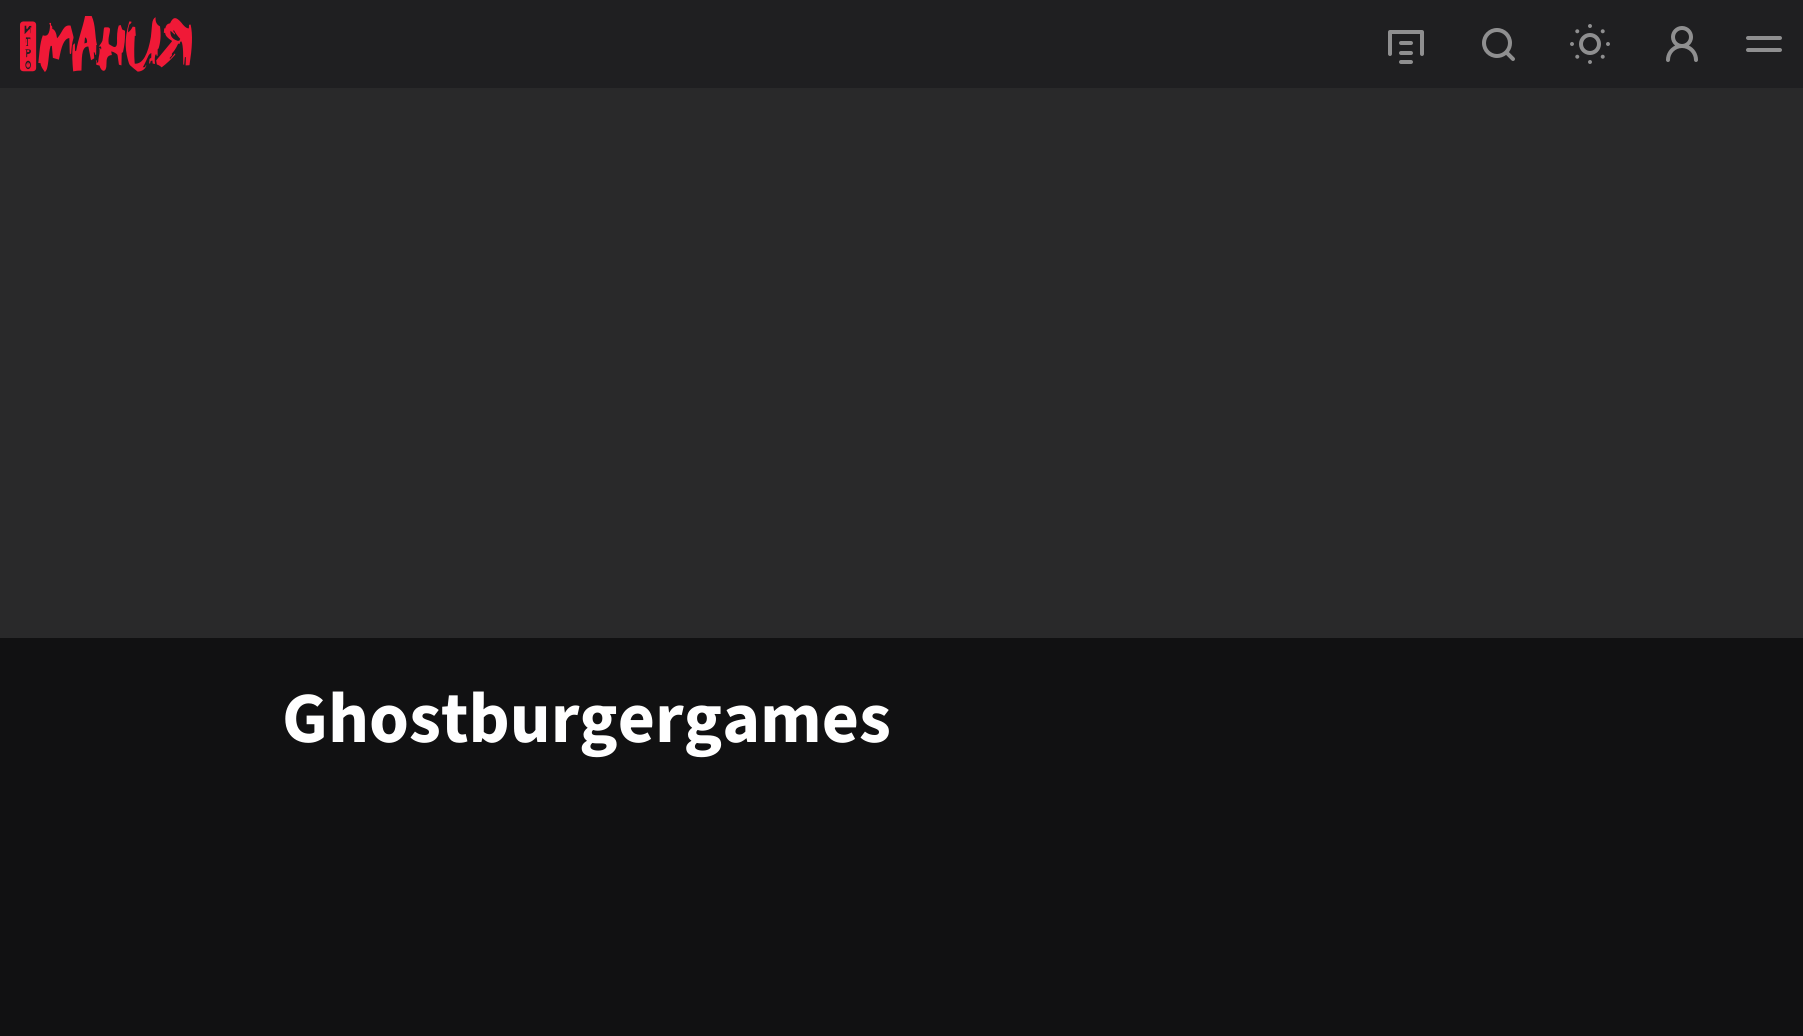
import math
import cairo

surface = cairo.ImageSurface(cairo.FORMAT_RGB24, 1803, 1036)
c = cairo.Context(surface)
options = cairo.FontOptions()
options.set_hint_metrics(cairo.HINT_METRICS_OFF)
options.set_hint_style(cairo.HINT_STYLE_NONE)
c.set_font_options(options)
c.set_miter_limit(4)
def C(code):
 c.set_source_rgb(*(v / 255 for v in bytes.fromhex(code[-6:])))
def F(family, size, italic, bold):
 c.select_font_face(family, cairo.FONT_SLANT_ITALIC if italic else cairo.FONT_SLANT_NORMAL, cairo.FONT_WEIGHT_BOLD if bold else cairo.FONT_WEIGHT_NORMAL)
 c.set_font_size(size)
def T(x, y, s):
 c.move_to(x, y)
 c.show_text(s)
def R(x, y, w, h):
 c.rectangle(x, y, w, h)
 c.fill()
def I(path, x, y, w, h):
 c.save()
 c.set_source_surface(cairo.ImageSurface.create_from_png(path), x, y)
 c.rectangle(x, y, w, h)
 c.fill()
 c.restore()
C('111112')
c.paint()
C('1f1f21')
R(0,0,1803,88)
I('1.png',20,16,172,56)
I('2.png',1388,30,36,34)
I('3.png',1482,28,33,33)
I('4.png',1570,24,40,40)
I('5.png',1666,26,32,36)
I('6.png',1746,36,36,16)
C('29292a')
R(0,88,1803,550)
F('Source Sans 3',72,0,1)
C('ffffff')
T(282,742,'Ghostburgergames')
surface.write_to_png('o.png')
